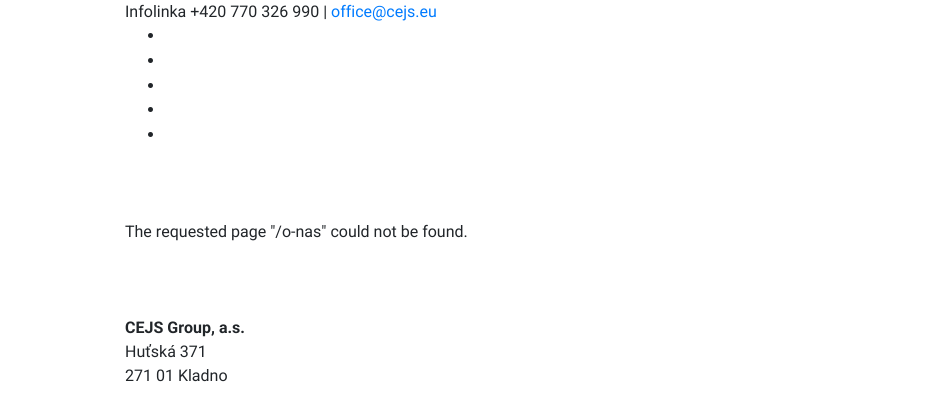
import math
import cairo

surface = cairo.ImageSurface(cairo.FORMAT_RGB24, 939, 396)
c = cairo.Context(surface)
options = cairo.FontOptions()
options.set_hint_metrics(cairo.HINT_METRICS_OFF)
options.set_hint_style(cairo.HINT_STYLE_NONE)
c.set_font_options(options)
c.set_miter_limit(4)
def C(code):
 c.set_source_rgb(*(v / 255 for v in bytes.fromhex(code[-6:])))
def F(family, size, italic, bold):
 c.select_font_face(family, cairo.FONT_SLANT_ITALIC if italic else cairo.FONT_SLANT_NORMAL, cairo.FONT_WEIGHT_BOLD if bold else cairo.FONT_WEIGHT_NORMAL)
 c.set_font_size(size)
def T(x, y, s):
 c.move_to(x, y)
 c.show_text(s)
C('ffffff')
c.paint()
F('Roboto',16,0,0)
C('212529')
T(125,17,'Infolinka +420 770 326 990 |')
C('007bff')
T(331,17,'office@cejs.eu')
C('212529')
c.new_path()
c.arc(150.5,35.5,2.5,0,2 * math.pi)
c.fill()
c.arc(150.5,60.5,2.5,0,2 * math.pi)
c.fill()
c.arc(150.5,85.5,2.5,0,2 * math.pi)
c.fill()
c.arc(150.5,109.5,2.5,0,2 * math.pi)
c.fill()
c.arc(150.5,134.5,2.5,0,2 * math.pi)
c.fill()
T(125,237,'The requested page "/o-nas" could not be found.')
F('Roboto',16,0,1)
T(125,333,'CEJS Group, a.s.')
F('Roboto',16,0,0)
T(125,357,'Huťská 371')
T(125,381,'271 01 Kladno')
surface.write_to_png('o.png')
